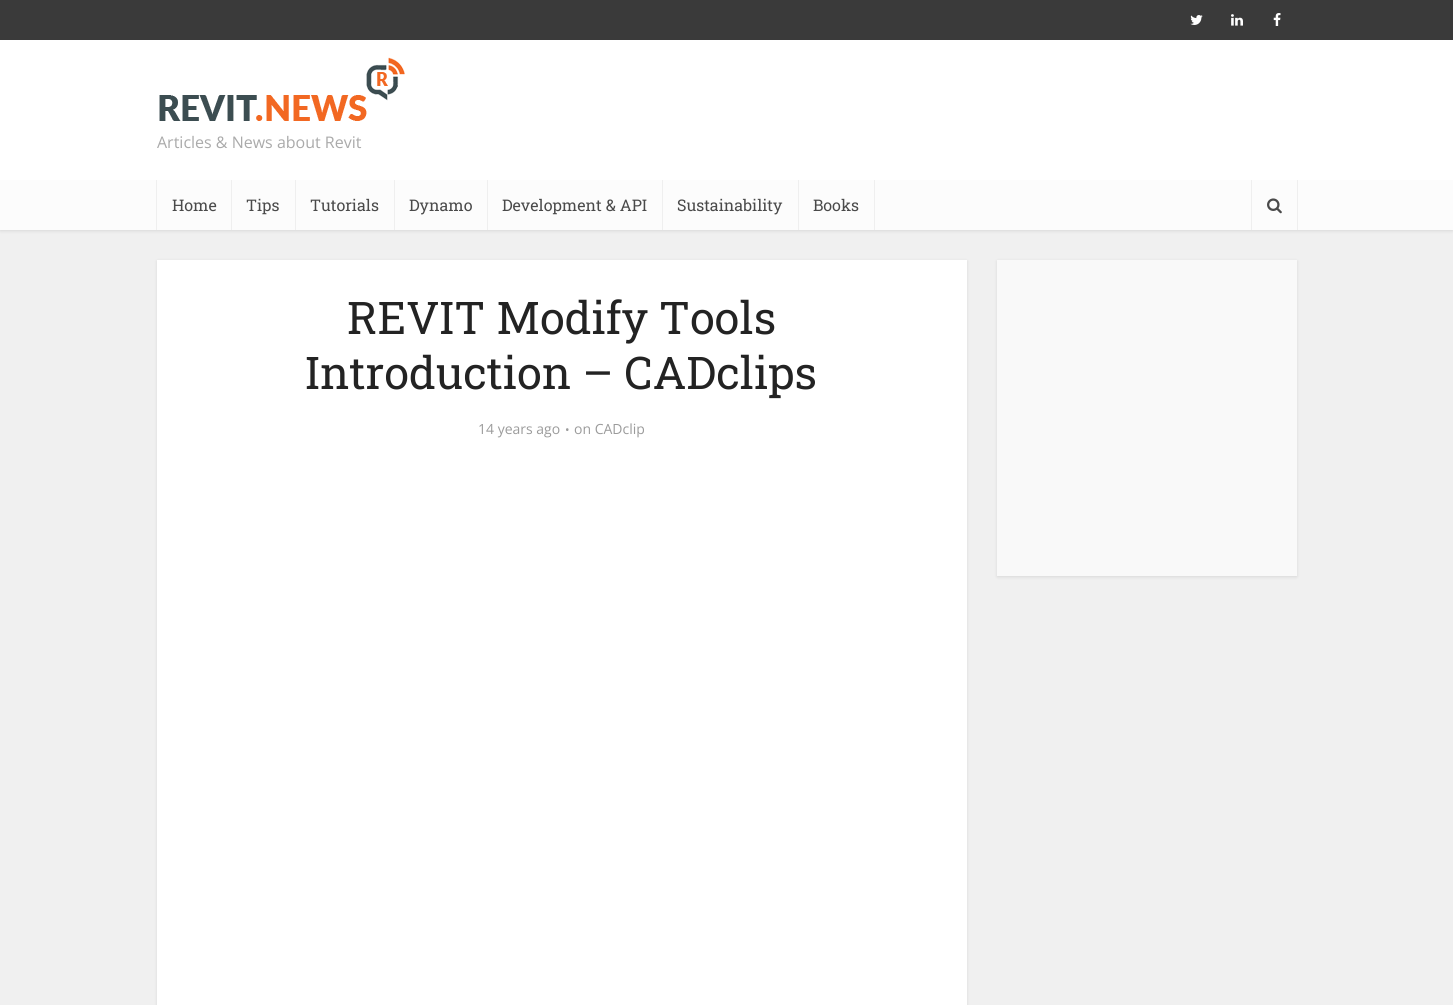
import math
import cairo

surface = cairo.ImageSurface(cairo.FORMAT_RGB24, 1453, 1005)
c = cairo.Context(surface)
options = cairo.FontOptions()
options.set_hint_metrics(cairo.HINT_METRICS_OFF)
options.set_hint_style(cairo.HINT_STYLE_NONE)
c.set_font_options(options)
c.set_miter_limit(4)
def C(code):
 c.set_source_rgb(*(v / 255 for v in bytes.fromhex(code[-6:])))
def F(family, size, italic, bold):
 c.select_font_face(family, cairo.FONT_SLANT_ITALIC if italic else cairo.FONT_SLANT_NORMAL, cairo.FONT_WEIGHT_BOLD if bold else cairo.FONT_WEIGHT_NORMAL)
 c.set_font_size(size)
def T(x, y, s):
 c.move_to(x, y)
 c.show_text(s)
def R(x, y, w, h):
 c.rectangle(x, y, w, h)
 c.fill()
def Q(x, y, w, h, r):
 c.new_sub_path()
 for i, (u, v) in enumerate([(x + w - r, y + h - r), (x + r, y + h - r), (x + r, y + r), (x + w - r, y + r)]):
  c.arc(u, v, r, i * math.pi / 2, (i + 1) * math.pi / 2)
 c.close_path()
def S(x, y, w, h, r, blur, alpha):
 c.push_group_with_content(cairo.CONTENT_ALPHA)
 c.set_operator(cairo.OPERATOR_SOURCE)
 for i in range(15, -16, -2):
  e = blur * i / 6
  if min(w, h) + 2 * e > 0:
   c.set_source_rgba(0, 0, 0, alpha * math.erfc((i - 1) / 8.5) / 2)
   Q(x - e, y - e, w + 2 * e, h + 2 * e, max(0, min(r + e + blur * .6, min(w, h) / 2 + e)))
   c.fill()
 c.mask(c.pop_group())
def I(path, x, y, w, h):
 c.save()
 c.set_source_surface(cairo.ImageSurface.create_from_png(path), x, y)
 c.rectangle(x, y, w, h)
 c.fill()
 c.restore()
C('f0f0f0')
c.paint()
C('000000')
S(0,1,1453,230,0,1.5,.1)
C('ffffff')
R(0,40,1453,140)
C('3a3a3a')
R(0,0,1453,40)
I('1.png',1190,15,13,10)
I('2.png',1231,14,12,12)
I('3.png',1273,13,8,13)
I('4.png',159,57,246,64)
F('Open Sans',16,0,0)
C('aaaaaa')
T(157,148,'Articles & News about Revit')
C('fcfcfc')
R(0,180,1453,50)
C('efefef')
R(231,180,1,50)
R(156,180,1,50)
F('Roboto Slab',16,0,0)
C('4a4a4a')
T(172,211,'Home')
C('efefef')
R(295,180,1,50)
C('4a4a4a')
T(246,211,'Tips')
C('efefef')
R(394,180,1,50)
C('4a4a4a')
T(310,211,'Tutorials')
C('efefef')
R(487,180,1,50)
C('4a4a4a')
T(409,211,'Dynamo')
C('efefef')
R(662,180,1,50)
C('4a4a4a')
T(502,211,'Development & API')
C('efefef')
R(798,180,1,50)
C('4a4a4a')
T(677,211,'Sustainability')
C('efefef')
R(874,180,1,50)
C('4a4a4a')
T(813,211,'Books')
C('efefef')
R(1297,180,1,50)
R(1251,180,1,50)
I('5.png',1267,198,15,16)
C('000000')
S(157,261,810,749,0,1.5,.1)
C('ffffff')
R(157,260,810,745)
F('Roboto Slab',45,0,0)
C('232323')
T(347,334,'REVIT Modify Tools')
T(305,389,'Introduction – CADclips')
F('Open Sans',14,0,0)
C('9b9b9b')
T(478,434,'14 years ago')
F('Open Sans',12,0,0)
T(565,434,'•')
F('Open Sans',14,0,0)
T(574,434,'on CADclip')
C('000000')
S(997,261,300,316,0,1.5,.1)
C('f9f9f9')
R(997,260,300,316)
surface.write_to_png('o.png')
